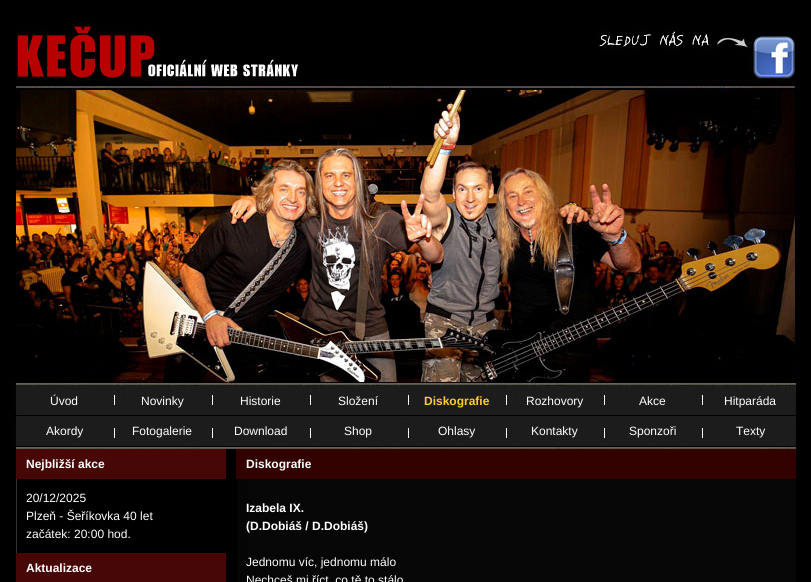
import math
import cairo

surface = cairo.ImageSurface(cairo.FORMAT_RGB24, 811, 582)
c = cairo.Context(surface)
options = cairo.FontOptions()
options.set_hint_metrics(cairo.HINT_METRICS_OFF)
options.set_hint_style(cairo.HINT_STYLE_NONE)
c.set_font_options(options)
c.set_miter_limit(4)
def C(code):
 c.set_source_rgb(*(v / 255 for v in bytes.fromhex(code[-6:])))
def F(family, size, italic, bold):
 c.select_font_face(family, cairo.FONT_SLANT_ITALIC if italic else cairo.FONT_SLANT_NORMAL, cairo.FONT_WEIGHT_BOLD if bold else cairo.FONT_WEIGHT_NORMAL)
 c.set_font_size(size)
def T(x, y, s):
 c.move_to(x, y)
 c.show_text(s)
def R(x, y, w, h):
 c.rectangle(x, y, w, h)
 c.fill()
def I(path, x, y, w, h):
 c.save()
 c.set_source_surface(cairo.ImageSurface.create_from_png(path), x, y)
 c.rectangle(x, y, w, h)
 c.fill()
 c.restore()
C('000000')
c.paint()
I('1.png',16,20,282,61)
I('2.png',596,29,200,52)
I('3.png',16,86,784,296)
I('4.png',9,382,792,67)
F('Liberation Sans',12,0,0)
C('ffffff')
T(50,405,'Úvod')
T(141,405,'Novinky')
T(240,405,'Historie')
T(338,405,'Složení')
F('Liberation Sans',12,0,1)
C('ffcc33')
T(424,405,'Diskografie')
F('Liberation Sans',12,0,0)
C('ffffff')
T(526,405,'Rozhovory')
T(639,405,'Akce')
T(724,405,'Hitparáda')
T(46,435,'Akordy')
T(132,435,'Fotogalerie')
T(234,435,'Download')
T(344,435,'Shop')
T(438,435,'Ohlasy')
T(531,435,'Kontakty')
T(629,435,'Sponzoři')
T(736,435,'Texty')
I('5.png',16,449,780,133)
C('480707')
R(16,449,210,30)
F('Liberation Sans',12,0,1)
C('ffffff')
T(26,468,'Nejbližší akce')
F('Liberation Sans',12,0,0)
T(26,502,'20/12/2025')
T(26,520,'Plzeň - Šeříkovka 40 let')
T(26,538,'začátek: 20:00 hod.')
C('480707')
R(16,553,210,29)
F('Liberation Sans',12,0,1)
C('ffffff')
T(26,572,'Aktualizace')
C('330000')
R(236,449,560,30)
C('ffffff')
T(246,468,'Diskografie')
T(246,512,'Izabela IX.')
T(246,530,'(D.Dobiáš / D.Dobiáš)')
F('Liberation Sans',12,0,0)
T(246,566,'Jednomu víc, jednomu málo')
T(246,584,'Nechceš mi říct, co tě to stálo')
surface.write_to_png('o.png')
